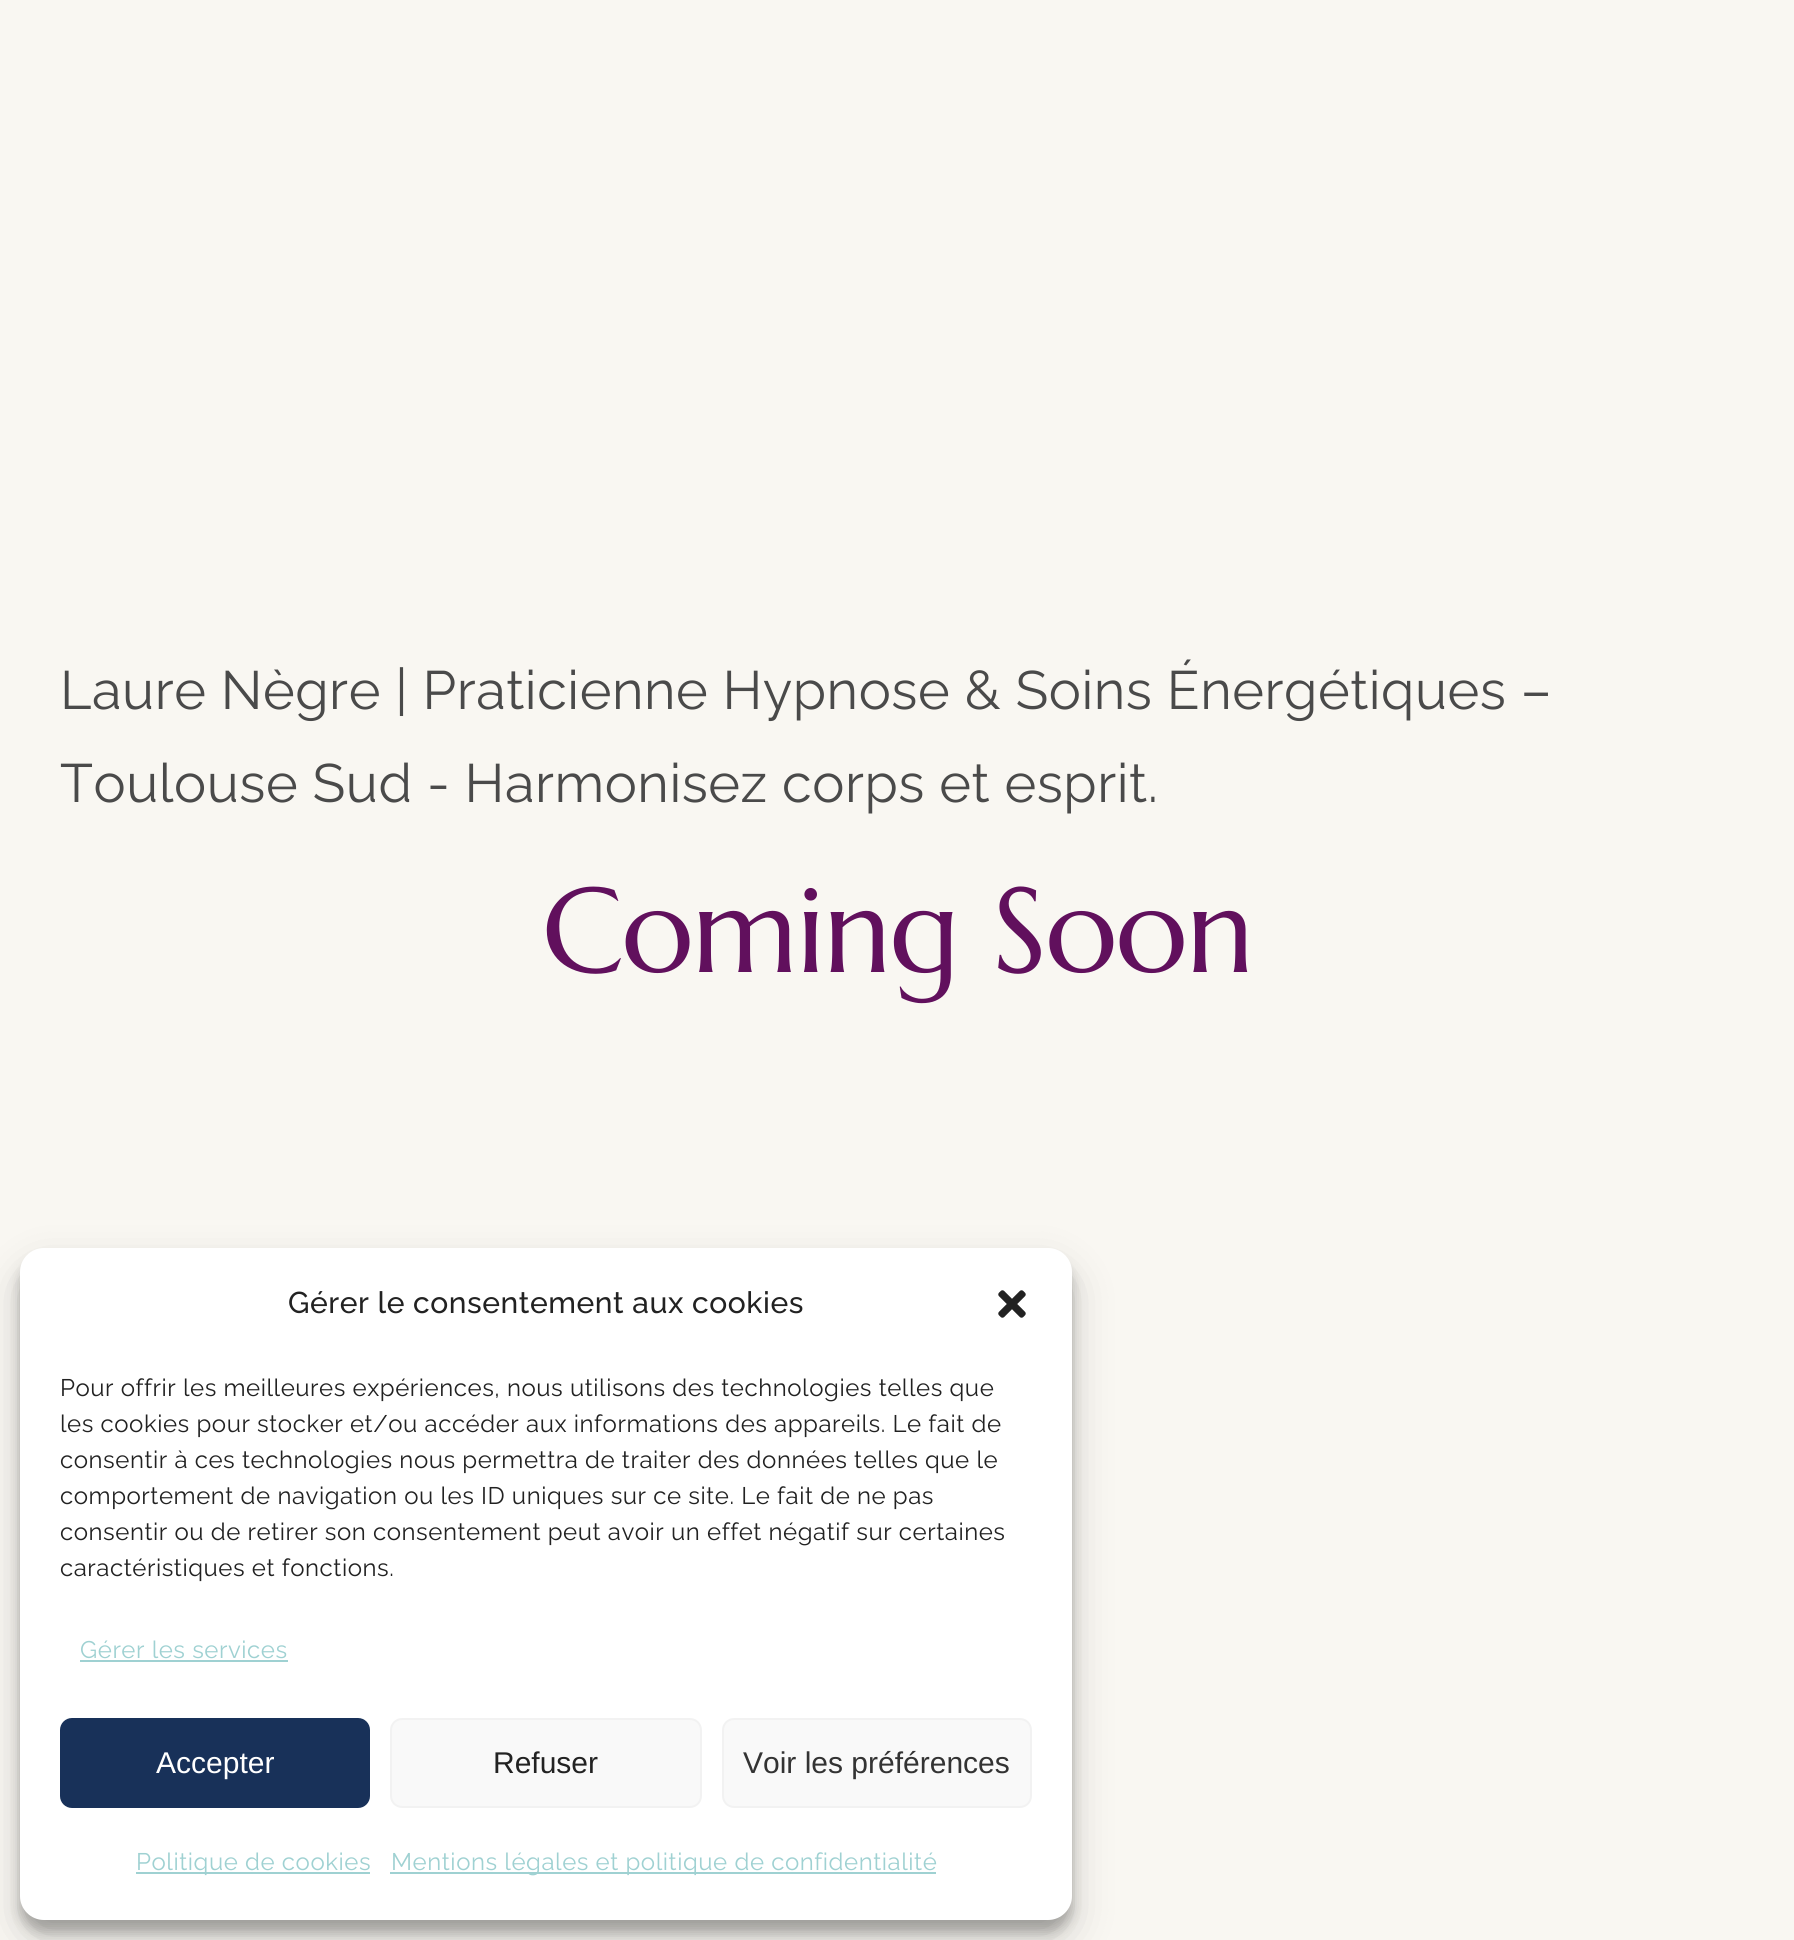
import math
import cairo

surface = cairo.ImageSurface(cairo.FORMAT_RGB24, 1794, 1940)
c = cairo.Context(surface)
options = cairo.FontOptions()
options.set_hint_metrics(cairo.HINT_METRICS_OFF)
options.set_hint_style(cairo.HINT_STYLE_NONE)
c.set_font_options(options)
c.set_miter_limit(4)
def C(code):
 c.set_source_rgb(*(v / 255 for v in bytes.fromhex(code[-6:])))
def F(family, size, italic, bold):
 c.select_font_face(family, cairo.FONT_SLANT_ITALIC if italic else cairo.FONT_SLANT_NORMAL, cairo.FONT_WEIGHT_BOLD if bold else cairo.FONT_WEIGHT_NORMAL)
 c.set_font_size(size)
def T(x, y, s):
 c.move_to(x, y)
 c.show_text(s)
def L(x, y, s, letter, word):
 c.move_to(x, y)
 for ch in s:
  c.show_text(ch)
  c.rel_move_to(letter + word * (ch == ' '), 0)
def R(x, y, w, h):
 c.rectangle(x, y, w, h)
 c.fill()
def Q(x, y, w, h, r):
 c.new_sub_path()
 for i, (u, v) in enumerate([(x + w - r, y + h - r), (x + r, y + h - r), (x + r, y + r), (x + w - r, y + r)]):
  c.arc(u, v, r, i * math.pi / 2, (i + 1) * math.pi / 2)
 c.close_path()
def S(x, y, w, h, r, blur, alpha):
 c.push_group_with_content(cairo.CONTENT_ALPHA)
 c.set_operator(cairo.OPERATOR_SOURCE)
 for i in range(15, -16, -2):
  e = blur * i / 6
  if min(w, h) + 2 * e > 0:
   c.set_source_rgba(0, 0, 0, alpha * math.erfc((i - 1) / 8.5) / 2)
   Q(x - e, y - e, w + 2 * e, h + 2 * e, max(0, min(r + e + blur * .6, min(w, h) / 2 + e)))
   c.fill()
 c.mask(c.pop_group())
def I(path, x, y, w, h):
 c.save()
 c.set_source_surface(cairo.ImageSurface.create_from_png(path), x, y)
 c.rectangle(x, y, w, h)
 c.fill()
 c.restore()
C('f9f7f2')
c.paint()
F('Raleway',54,0,0)
C('4a4a4a')
L(60,709,'Laure Nègre | Praticienne Hypnose & Soins Énergétiques –',.55,0)
L(60,802,'Toulouse Sud - Harmonisez corps et esprit.',.55,0)
F('Marcellus',120,0,0)
C('61105d')
L(542,972,'Coming Soon',-1.75,0)
C('000000')
S(20,1260,1052,672,24,6,.23)
S(20,1268,1052,672,24,20,.19)
C('ffffff')
Q(20,1248,1052,672,24)
c.fill()
F('Raleway Medium',30,0,0)
C('222222')
L(288,1313,'Gérer le consentement aux cookies',.55,0)
I('1.png',998,1290,28,28)
F('Raleway',24,0,0)
L(60,1396,'Pour offrir les meilleures expériences, nous utilisons des technologies telles que',.55,0)
L(60,1432,'les cookies pour stocker et/ou accéder aux informations des appareils. Le fait de',.55,0)
L(60,1468,'consentir à ces technologies nous permettra de traiter des données telles que le',.55,0)
L(60,1504,'comportement de navigation ou les ID uniques sur ce site. Le fait de ne pas',.55,0)
L(60,1540,'consentir ou de retirer son consentement peut avoir un effet négatif sur certaines',.55,0)
L(60,1576,'caractéristiques et fonctions.',.55,0)
C('9fd1d2')
L(80,1658,'Gérer les services',.55,0)
R(80,1660,208,2)
C('183159')
Q(61,1719,308,88,11)
c.fill_preserve()
c.stroke()
F('Liberation Sans',30,0,0)
C('ffffff')
T(156,1773,'Accepter')
C('f9f9f9')
Q(391,1719,310,88,11)
c.fill_preserve()
C('f2f2f2')
c.stroke()
C('222222')
T(493,1773,'Refuser')
C('f9f9f9')
Q(723,1719,308,88,11)
c.fill_preserve()
C('f2f2f2')
c.stroke()
C('333333')
T(743,1773,'Voir les préférences')
C('9fd1d2')
R(136,1872,234,2)
F('Raleway',24,0,0)
L(136,1870,'Politique de cookies',.55,0)
R(390,1872,546,2)
L(391,1870,'Mentions légales et politique de confidentialité',.55,0)
surface.write_to_png('o.png')
